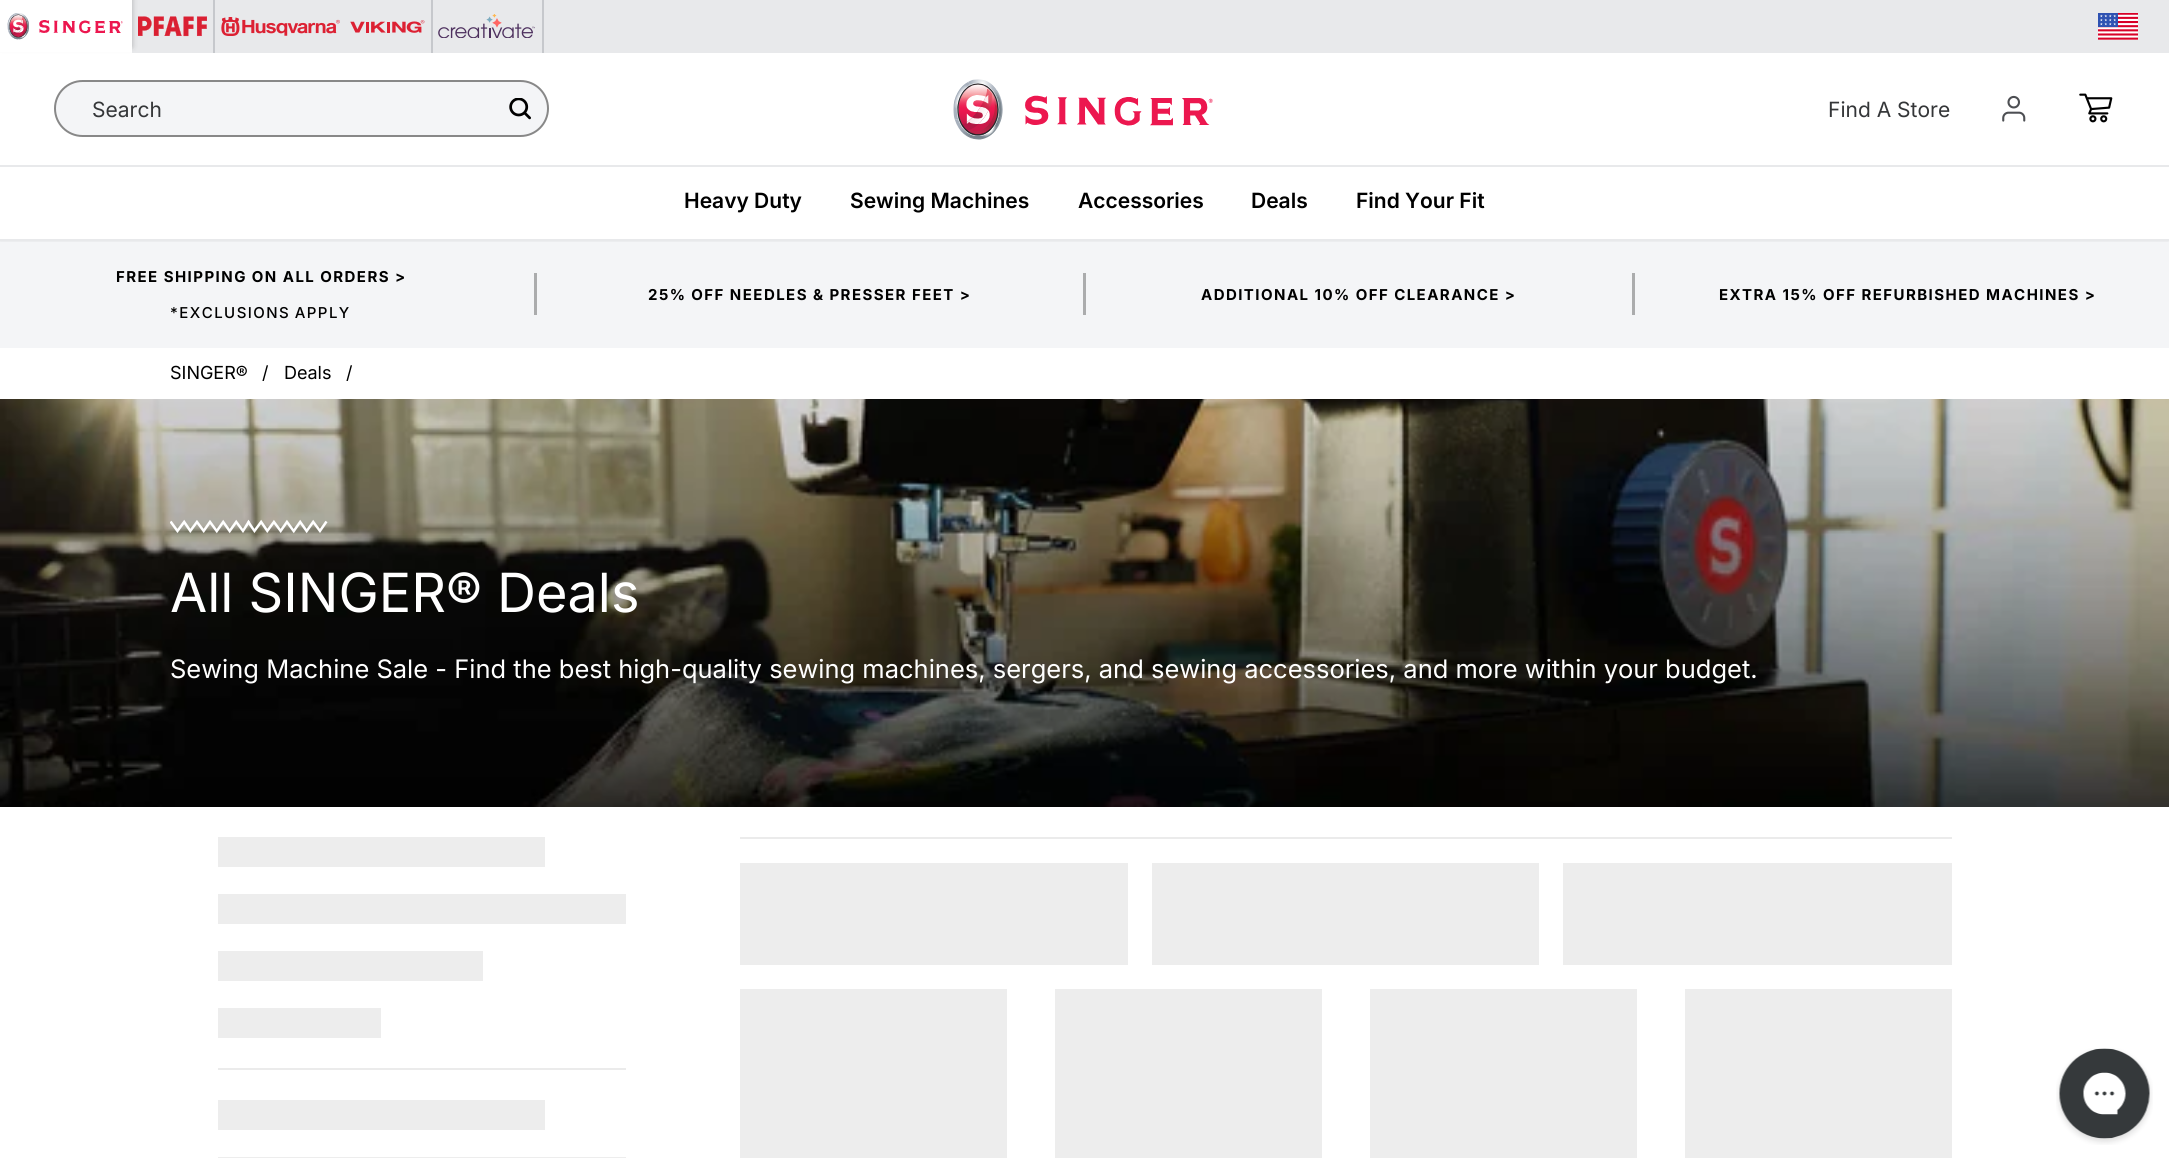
import math
import cairo

surface = cairo.ImageSurface(cairo.FORMAT_RGB24, 2169, 1158)
c = cairo.Context(surface)
options = cairo.FontOptions()
options.set_hint_metrics(cairo.HINT_METRICS_OFF)
options.set_hint_style(cairo.HINT_STYLE_NONE)
c.set_font_options(options)
c.set_miter_limit(4)
def C(code):
 c.set_source_rgb(*(v / 255 for v in bytes.fromhex(code[-6:])))
def F(family, size, italic, bold):
 c.select_font_face(family, cairo.FONT_SLANT_ITALIC if italic else cairo.FONT_SLANT_NORMAL, cairo.FONT_WEIGHT_BOLD if bold else cairo.FONT_WEIGHT_NORMAL)
 c.set_font_size(size)
def T(x, y, s):
 c.move_to(x, y)
 c.show_text(s)
def L(x, y, s, letter, word):
 c.move_to(x, y)
 for ch in s:
  c.show_text(ch)
  c.rel_move_to(letter + word * (ch == ' '), 0)
def R(x, y, w, h):
 c.rectangle(x, y, w, h)
 c.fill()
def Q(x, y, w, h, r):
 c.new_sub_path()
 for i, (u, v) in enumerate([(x + w - r, y + h - r), (x + r, y + h - r), (x + r, y + r), (x + w - r, y + r)]):
  c.arc(u, v, r, i * math.pi / 2, (i + 1) * math.pi / 2)
 c.close_path()
def S(x, y, w, h, r, blur, alpha):
 c.push_group_with_content(cairo.CONTENT_ALPHA)
 c.set_operator(cairo.OPERATOR_SOURCE)
 for i in range(15, -16, -2):
  e = blur * i / 6
  if min(w, h) + 2 * e > 0:
   c.set_source_rgba(0, 0, 0, alpha * math.erfc((i - 1) / 8.5) / 2)
   Q(x - e, y - e, w + 2 * e, h + 2 * e, max(0, min(r + e + blur * .6, min(w, h) / 2 + e)))
   c.fill()
 c.mask(c.pop_group())
def I(path, x, y, w, h):
 c.save()
 c.set_source_surface(cairo.ImageSurface.create_from_png(path), x, y)
 c.rectangle(x, y, w, h)
 c.fill()
 c.restore()
C('ffffff')
c.paint()
C('e8e9eb')
R(132,0,2037,53)
I('2.png',138,16,69,21)
C('000000')
S(0,-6,132,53,0,3,.25)
C('ffffff')
R(0,0,132,52)
I('1.png',7,13,116,27)
C('c6c8cc')
R(213,0,2,53)
R(431,0,2,53)
I('3.png',221,17,119,19)
I('4.png',350,20,75,13)
R(542,0,2,53)
I('5.png',438,14,97,24)
I('6.png',2098,13,40,27)
C('f4f5f7')
Q(55,81,493,55,27.5)
c.fill_preserve()
C('888888')
c.stroke()
F('Inter',21,0,0)
C('343638')
T(92,117,'Search')
I('7.png',509,98,22,22)
I('8.png',953,79,260,61)
T(1828,117,'Find A Store')
I('9.png',2002,95,24,27)
I('10.png',2079,93,34,30)
C('f4f5f7')
R(0,241,2169,107)
c.save()
c.rectangle(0,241,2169,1)
c.clip()
C('000000')
S(0,167,2169,75,0,1.5,.05)
c.restore()
C('e8e9eb')
R(0,165,2169,2)
R(0,239,2169,2)
F('Inter SemiBold',21,0,0)
C('000000')
T(684,208,'Heavy Duty')
T(850,208,'Sewing Machines')
T(1078,208,'Accessories')
T(1251,208,'Deals')
T(1356,208,'Find Your Fit')
F('Inter',15,0,1)
L(116,282,'FREE SHIPPING ON ALL ORDERS >',1.45,0)
F('Inter Medium',15,0,0)
L(170,318,'*EXCLUSIONS APPLY',1.45,-1)
C('abacad')
R(534,273,3,42)
F('Inter',15,0,1)
C('000000')
L(648,300,'25% OFF NEEDLES & PRESSER FEET >',1.45,0)
C('abacad')
R(1083,273,3,42)
C('000000')
L(1201,300,'ADDITIONAL 10% OFF CLEARANCE >',1.45,0)
C('abacad')
R(1632,273,3,42)
C('000000')
L(1719,300,'EXTRA 15% OFF REFURBISHED MACHINES >',1.45,0)
F('Inter',18,0,0)
T(170,379,'SINGER®')
T(262,379,'/')
T(284,379,'Deals')
T(346,379,'/')
I('11.png',0,399,2169,408)
I('12.png',170,519,158,15)
F('Inter',54,0,0)
C('ffffff')
T(170,612,'All SINGER® Deals')
F('Inter',25.5,0,0)
T(170,678,'Sewing Machine Sale - Find the best high-quality sewing machines, sergers, and sewing accessories, and more within your budget.')
C('ebebeb')
R(218,1068,408,2)
C('ededed')
R(218,837,327,30)
R(218,894,408,30)
R(218,951,265,30)
R(218,1008,163,30)
R(218,1100,327,30)
R(218,1157,408,1)
C('ebebeb')
R(740,837,1212,2)
C('ededed')
R(740,863,388,102)
R(1152,863,387,102)
R(1563,863,389,102)
R(740,989,267,169)
R(1055,989,267,169)
R(1370,989,267,169)
R(1685,989,267,169)
I('13.png',2056,1048,97,97)
surface.write_to_png('o.png')
